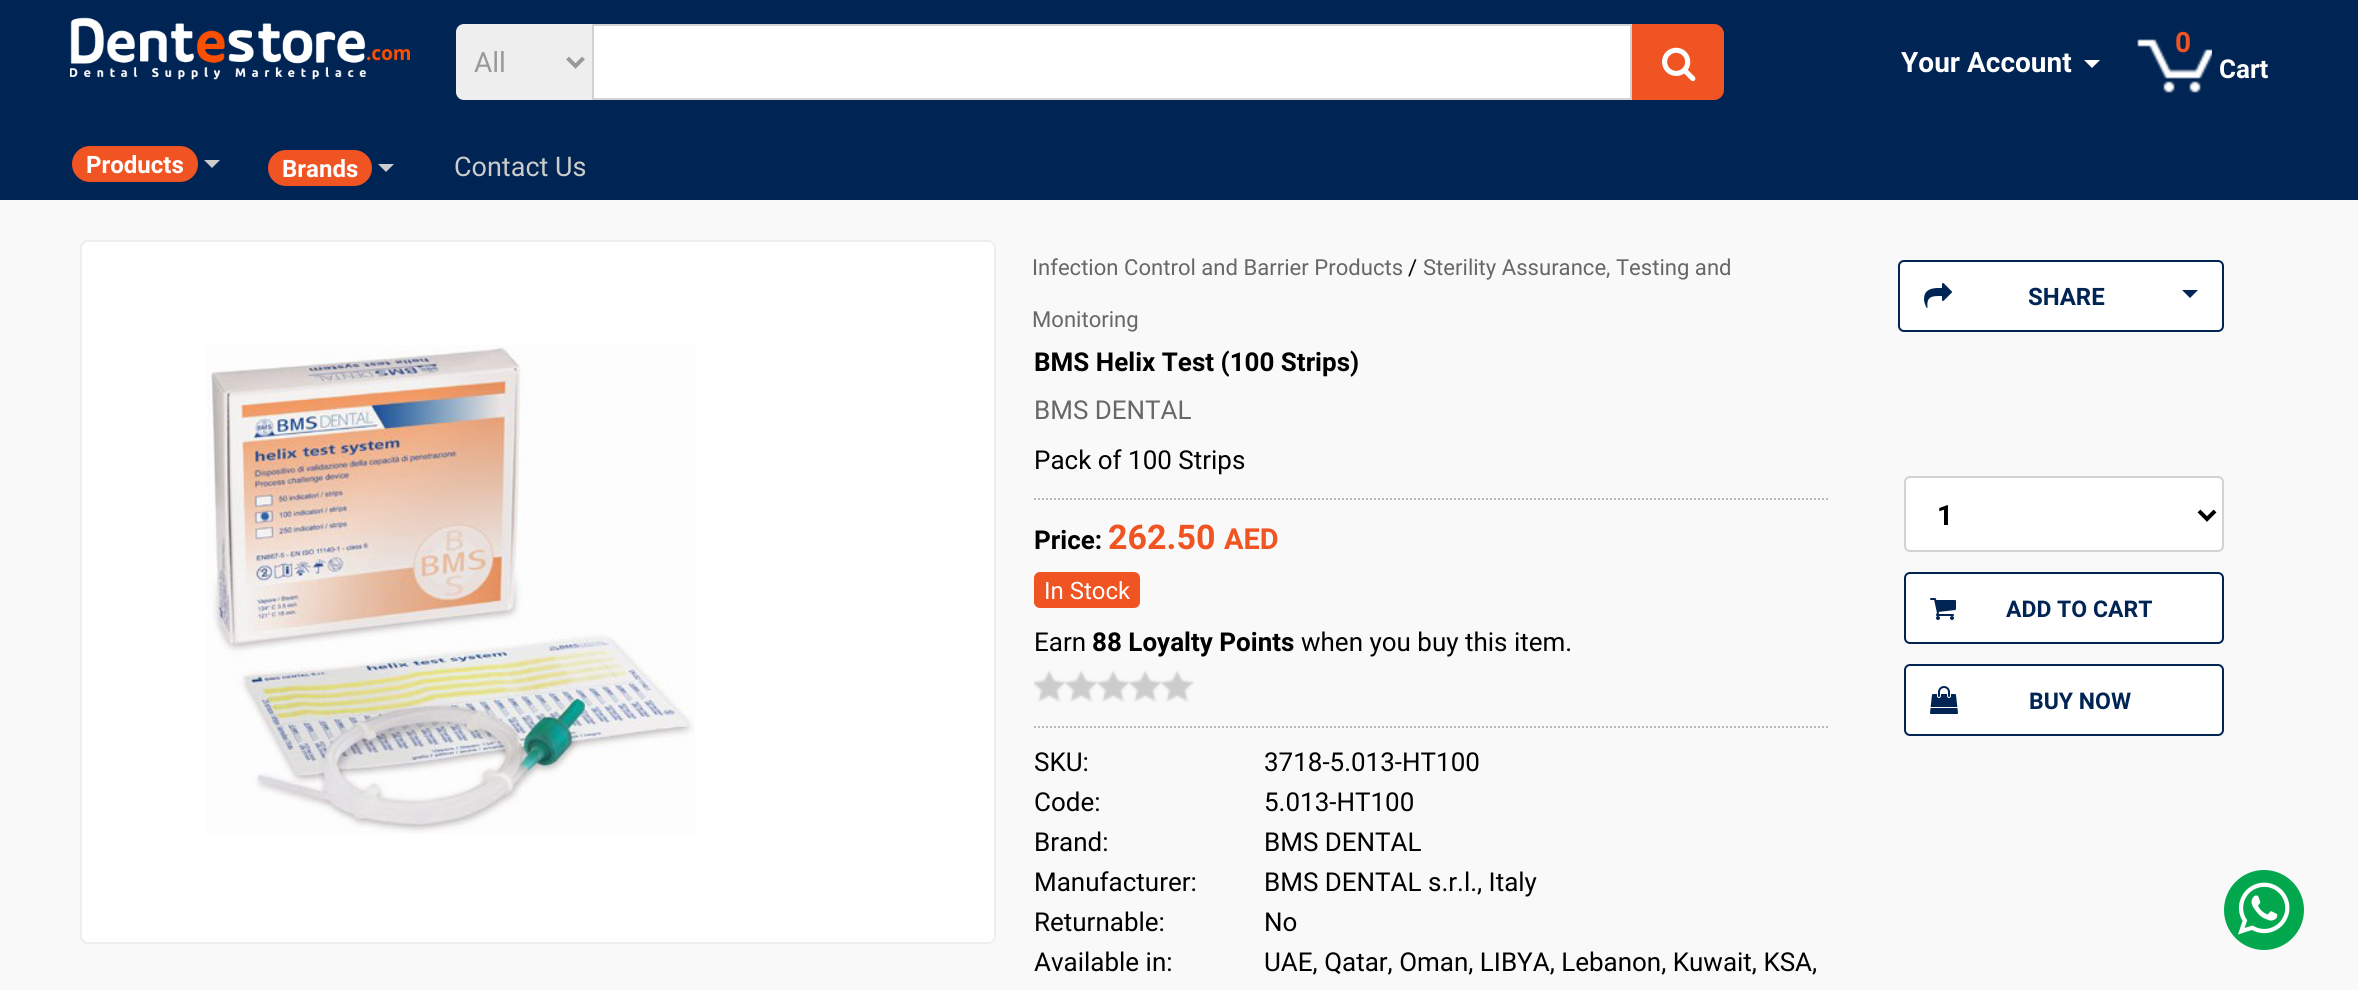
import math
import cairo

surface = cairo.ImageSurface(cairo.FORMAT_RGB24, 2358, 990)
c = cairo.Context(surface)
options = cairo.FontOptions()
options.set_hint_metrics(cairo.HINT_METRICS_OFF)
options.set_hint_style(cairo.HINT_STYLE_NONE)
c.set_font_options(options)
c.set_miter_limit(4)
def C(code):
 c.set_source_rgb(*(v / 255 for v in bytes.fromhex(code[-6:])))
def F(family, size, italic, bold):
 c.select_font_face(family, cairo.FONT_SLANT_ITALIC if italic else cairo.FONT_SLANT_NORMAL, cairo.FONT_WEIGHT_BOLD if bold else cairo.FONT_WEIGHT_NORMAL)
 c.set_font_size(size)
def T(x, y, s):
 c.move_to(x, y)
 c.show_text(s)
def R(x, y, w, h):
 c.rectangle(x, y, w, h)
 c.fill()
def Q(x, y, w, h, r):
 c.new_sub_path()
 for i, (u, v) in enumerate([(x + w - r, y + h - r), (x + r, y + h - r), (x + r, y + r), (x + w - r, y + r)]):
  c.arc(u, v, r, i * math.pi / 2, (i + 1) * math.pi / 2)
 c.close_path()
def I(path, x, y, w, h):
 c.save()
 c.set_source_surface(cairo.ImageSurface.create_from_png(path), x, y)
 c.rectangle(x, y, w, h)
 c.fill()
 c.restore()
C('f9f9f9')
c.paint()
C('002453')
R(0,0,2358,200)
I('1.png',70,17,340,63)
C('eeeeee')
c.new_path()
c.move_to(464,24)
c.line_to(592,24)
c.line_to(592,100)
c.line_to(464,100)
c.curve_to(459.5,100,456,96.5,456,92)
c.line_to(456,32)
c.curve_to(456,27.5,459.5,24,464,24)
c.close_path()
c.fill()
c.new_path()
c.move_to(567.5,58)
c.line_to(575.5,66)
c.line_to(583.5,58)
C('999999')
c.set_line_width(4)
c.stroke()
F('Roboto',28,0,0)
T(474,72,'All')
C('ffffff')
c.rectangle(593,25,1038,74)
c.fill_preserve()
C('d2d2d2')
c.set_line_width(2)
c.stroke()
C('f05423')
c.new_path()
c.move_to(1632,24)
c.line_to(1714,24)
c.curve_to(1719.5,24,1724,28.5,1724,34)
c.line_to(1724,90)
c.curve_to(1724,95.5,1719.5,100,1714,100)
c.line_to(1632,100)
c.close_path()
c.fill()
I('2.png',1662,47,34,35)
F('Roboto',28,0,1)
C('ffffff')
T(1901,72,'Your Account')
c.new_path()
c.move_to(2084,60)
c.line_to(2100,60)
c.line_to(2092,68)
c.close_path()
c.fill()
C('f05423')
T(2175,52,'0')
I('3.png',2137,39,75,54)
F('Roboto',26,0,1)
C('ffffff')
T(2219,78,'Cart')
C('f05423')
Q(72,146,126,36,18)
c.fill()
F('Roboto',24,0,1)
C('ffffff')
T(86,173,'Products')
C('cccccc')
c.new_path()
c.move_to(204,160)
c.line_to(220,160)
c.line_to(212,168)
c.close_path()
c.fill()
C('f05423')
Q(268,150,104,36,18)
c.fill()
C('ffffff')
T(282,177,'Brands')
C('cccccc')
c.new_path()
c.move_to(378,164)
c.line_to(394,164)
c.line_to(386,172)
c.close_path()
c.fill()
F('Roboto',27,0,0)
T(454,176,'Contact Us')
C('ffffff')
Q(81,241,914,702,7)
c.fill_preserve()
C('eeeeee')
c.stroke()
I('4.png',206,345,489,489)
F('Roboto',22.1,0,0)
C('676767')
T(1032,275,'Infection Control and Barrier Products')
C('000000')
T(1408,275,'/')
C('676767')
T(1423,275,'Sterility Assurance, Testing and')
T(1032,327,'Monitoring')
C('ffffff')
Q(1899,261,324,70,5)
c.fill_preserve()
C('002453')
c.stroke()
I('5.png',1924,283,28,25)
F('Roboto',24,0,1)
T(2028,305,'SHARE')
c.new_path()
c.move_to(2182,290)
c.line_to(2198,290)
c.line_to(2190,298)
c.close_path()
c.fill()
F('Roboto',26,0,1)
C('000000')
T(1034,371,'BMS Helix Test (100 Strips)')
F('Roboto',26,0,0)
C('676767')
T(1034,419,'BMS DENTAL')
C('000000')
T(1034,469,'Pack of 100 Strips')
c.new_path()
c.move_to(1034,499)
c.line_to(1828,499)
C('bbbbbb')
c.set_dash([2,2])
c.stroke()
F('Roboto',26,0,1)
C('000000')
T(1034,549,'Price:')
F('Roboto',34,0,1)
C('f05423')
T(1108,549,'262.50')
F('Roboto',29,0,1)
T(1224,549,'AED')
Q(1034,572,106,36,6)
c.fill()
F('Roboto',24,0,0)
C('ffffff')
T(1044,599,'In Stock')
F('Roboto',26,0,0)
C('000000')
T(1034,651,'Earn')
F('Roboto',26,0,1)
T(1092,651,'88 Loyalty Points')
F('Roboto',26,0,0)
T(1301,651,'when you buy this item.')
I('6.png',1034,670,160,32)
c.new_path()
c.move_to(1034,727)
c.line_to(1828,727)
C('bbbbbb')
c.stroke()
C('000000')
T(1034,771,'SKU:')
T(1264,771,'3718-5.013-HT100')
T(1034,811,'Code:')
T(1264,811,'5.013-HT100')
T(1034,851,'Brand:')
T(1264,851,'BMS DENTAL')
T(1034,891,'Manufacturer:')
T(1264,891,'BMS DENTAL s.r.l., Italy')
T(1034,931,'Returnable:')
T(1264,931,'No')
T(1034,971,'Available in:')
T(1264,971,'UAE, Qatar, Oman, LIBYA, Lebanon, Kuwait, KSA,')
C('ffffff')
Q(1905,477,318,74,5)
c.fill_preserve()
C('d2d2d2')
c.set_dash([])
c.stroke()
c.new_path()
c.move_to(2199,511)
c.line_to(2207,519)
c.line_to(2215,511)
C('000000')
c.set_line_width(4)
c.stroke()
F('Roboto',28,0,1)
T(1937,525,'1')
C('ffffff')
Q(1905,573,318,70,5)
c.fill_preserve()
C('002453')
c.set_line_width(2)
c.stroke()
I('7.png',1930,598,26,22)
F('Roboto',23,0,1)
T(2006,617,'ADD TO CART')
C('ffffff')
Q(1905,665,318,70,5)
c.fill_preserve()
C('002453')
c.stroke()
I('8.png',1930,686,28,28)
T(2029,709,'BUY NOW')
C('03a84e')
c.new_path()
c.arc(2264,910,40,0,2 * math.pi)
c.fill()
I('9.png',2238,882,52,53)
surface.write_to_png('o.png')
